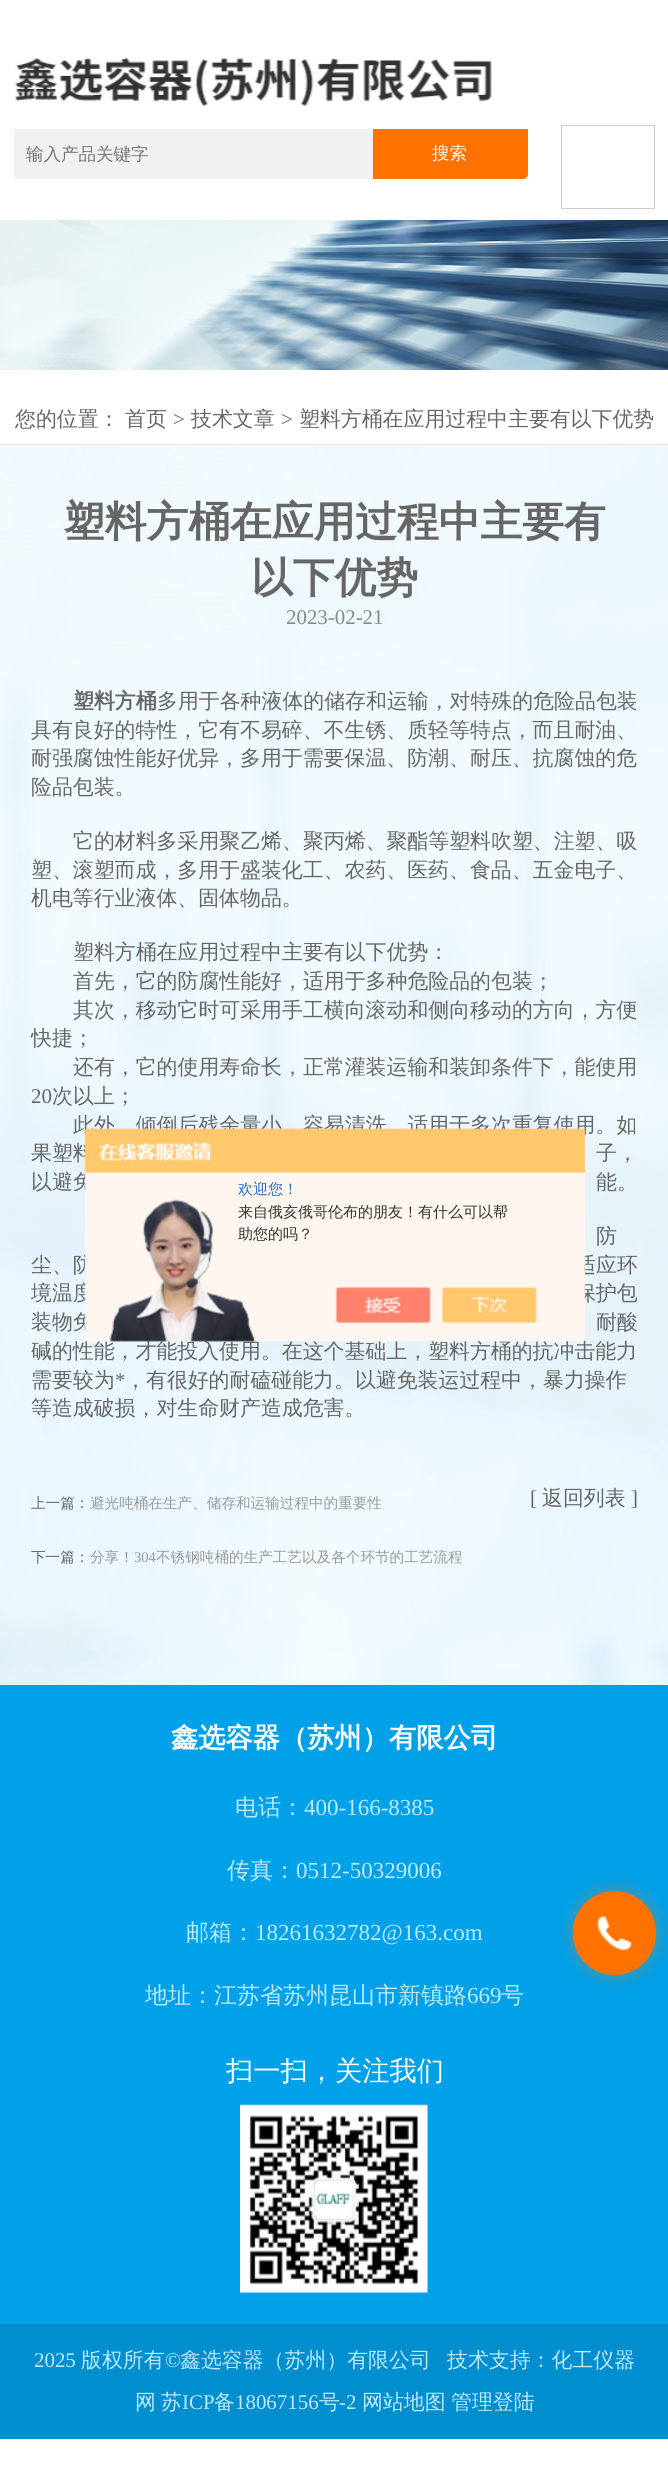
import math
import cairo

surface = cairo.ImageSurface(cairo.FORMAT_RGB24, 668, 2468)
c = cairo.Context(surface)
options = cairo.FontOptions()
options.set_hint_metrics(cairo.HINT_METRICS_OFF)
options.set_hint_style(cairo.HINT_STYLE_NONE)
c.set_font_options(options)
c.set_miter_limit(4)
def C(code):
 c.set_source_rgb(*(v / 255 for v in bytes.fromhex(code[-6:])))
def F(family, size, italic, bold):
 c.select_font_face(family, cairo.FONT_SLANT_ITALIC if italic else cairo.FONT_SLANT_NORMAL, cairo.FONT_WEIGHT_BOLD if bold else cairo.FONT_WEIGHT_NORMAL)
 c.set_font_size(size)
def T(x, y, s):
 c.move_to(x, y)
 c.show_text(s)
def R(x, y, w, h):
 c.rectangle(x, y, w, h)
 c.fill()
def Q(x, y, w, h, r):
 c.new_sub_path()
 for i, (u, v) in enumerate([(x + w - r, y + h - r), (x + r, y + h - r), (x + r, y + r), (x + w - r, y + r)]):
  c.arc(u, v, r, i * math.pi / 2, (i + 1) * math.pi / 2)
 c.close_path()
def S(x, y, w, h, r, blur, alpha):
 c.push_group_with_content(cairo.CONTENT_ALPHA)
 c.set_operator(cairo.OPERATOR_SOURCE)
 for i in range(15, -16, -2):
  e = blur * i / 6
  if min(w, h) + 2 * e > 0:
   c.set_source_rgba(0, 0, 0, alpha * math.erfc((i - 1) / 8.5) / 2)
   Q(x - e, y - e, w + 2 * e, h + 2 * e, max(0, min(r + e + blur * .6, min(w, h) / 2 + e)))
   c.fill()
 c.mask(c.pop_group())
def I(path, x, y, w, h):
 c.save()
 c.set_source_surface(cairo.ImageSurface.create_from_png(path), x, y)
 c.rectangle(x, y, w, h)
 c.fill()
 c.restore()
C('ffffff')
c.paint()
I('1.png',14,58,478,48)
C('f1f1f1')
c.new_path()
c.move_to(14,129)
c.line_to(373,129)
c.line_to(373,179)
c.line_to(19,179)
c.curve_to(16,179,14,177,14,174)
c.close_path()
c.fill()
F('WenQuanYi Zen Hei Medium',17.5,0,0)
C('757575')
T(26,160,'输入产品关键字')
C('ff7200')
c.new_path()
c.move_to(373,129)
c.line_to(528,129)
c.line_to(528,174)
c.curve_to(528,177,526,179,523,179)
c.line_to(373,179)
c.close_path()
c.fill()
C('ffffff')
T(432,159,'搜索')
c.rectangle(561.5,125.5,93,83)
C('cccccc')
c.set_line_width(1)
c.stroke()
I('2.png',0,220,668,150)
C('e8e8e8')
R(0,444,668,1)
F('WenQuanYi Zen Hei Medium',20.9,0,0)
C('666666')
T(15,426,'您的位置：')
T(125,426,'首页')
F('Liberation Serif',20.9,0,0)
T(173,426,'>')
F('WenQuanYi Zen Hei Medium',20.9,0,0)
T(191,426,'技术文章')
F('Liberation Serif',20.9,0,0)
T(281,426,'>')
F('WenQuanYi Zen Hei Medium',20.9,0,0)
T(299,426,'塑料方桶在应用过程中主要有以下优势')
I('3.png',0,445,668,1240)
F('WenQuanYi Zen Hei',41.75,0,1)
T(63,536,'塑料方桶在应用过程中主要有')
T(251,592,'以下优势')
F('Liberation Serif',20.9,0,0)
C('888888')
T(286,624,'2023-02-21')
F('WenQuanYi Zen Hei',20.9,0,1)
C('666666')
T(73,708,'塑料方桶')
F('WenQuanYi Zen Hei Medium',20.9,0,0)
T(157,708,'多用于各种液体的储存和运输，对特殊的危险品包装')
T(31,737,'具有良好的特性，它有不易碎、不生锈、质轻等特点，而且耐油、')
T(31,765,'耐强腐蚀性能好优异，多用于需要保温、防潮、耐压、抗腐蚀的危')
T(31,794,'险品包装。')
T(73,848,'它的材料多采用聚乙烯、聚丙烯、聚酯等塑料吹塑、注塑、吸')
T(31,877,'塑、滚塑而成，多用于盛装化工、农药、医药、食品、五金电子、')
T(31,905,'机电等行业液体、固体物品。')
T(73,959,'塑料方桶在应用过程中主要有以下优势：')
T(73,988,'首先，它的防腐性能好，适用于多种危险品的包装；')
T(73,1017,'其次，移动它时可采用手工横向滚动和侧向移动的方向，方便')
T(31,1045,'快捷；')
T(73,1074,'还有，它的使用寿命长，正常灌装运输和装卸条件下，能使用')
F('Liberation Serif',20.9,0,0)
T(31,1103,'20')
F('WenQuanYi Zen Hei Medium',20.9,0,0)
T(52,1103,'次以上；')
T(73,1132,'此外，倾倒后残余量小，容易清洗，适用于多次重复使用。如')
T(31,1160,'果塑料')
T(596,1160,'子，')
T(31,1189,'以避免')
T(596,1189,'能。')
T(596,1243,'防')
T(31,1272,'尘、防')
T(575,1272,'适应环')
T(31,1300,'境温度')
T(575,1300,'保护包')
T(31,1329,'装物免')
T(596,1329,'耐酸')
T(31,1358,'碱的性能，才能投入使用。在这个基础上，塑料方桶的抗冲击能力')
T(31,1387,'需要较为')
F('Liberation Serif',20.9,0,0)
T(115,1387,'*')
F('WenQuanYi Zen Hei Medium',20.9,0,0)
T(125,1387,'，有很好的耐磕碰能力。以避免装运过程中，暴力操作')
T(31,1415,'等造成破损，对生命财产造成危害。')
F('WenQuanYi Zen Hei Medium',14.6,0,0)
T(31,1508,'上一篇：')
C('999999')
T(90,1508,'避光吨桶在生产、储存和运输过程中的重要性')
C('666666')
T(31,1562,'下一篇：')
C('999999')
T(90,1562,'分享！')
F('Liberation Serif',14.6,0,0)
T(134,1562,'304')
F('WenQuanYi Zen Hei Medium',14.6,0,0)
T(156,1562,'不锈钢吨桶的生产工艺以及各个环节的工艺流程')
F('Liberation Serif',20.9,0,0)
C('666666')
T(530,1505,'[')
F('WenQuanYi Zen Hei Medium',20.9,0,0)
T(542,1505,'返回列表')
F('Liberation Serif',20.9,0,0)
T(631,1505,']')
C('00a1e9')
R(0,1685,668,639)
F('WenQuanYi Zen Hei',27.25,0,1)
C('ffffff')
T(171,1747,'鑫选容器（苏州）有限公司')
F('WenQuanYi Zen Hei Medium',23,0,0)
C('bceafe')
T(235,1815,'电话：')
F('Liberation Serif',23,0,0)
T(304,1815,'400-166-8385')
F('WenQuanYi Zen Hei Medium',23,0,0)
T(227,1878,'传真：')
F('Liberation Serif',23,0,0)
T(296,1878,'0512-50329006')
F('WenQuanYi Zen Hei Medium',23,0,0)
T(186,1940,'邮箱：')
F('Liberation Serif',23,0,0)
T(255,1940,'18261632782@163.com')
F('WenQuanYi Zen Hei Medium',23,0,0)
T(145,2003,'地址：江苏省苏州昆山市新镇路')
F('Liberation Serif',23,0,0)
T(467,2003,'669')
F('WenQuanYi Zen Hei Medium',23,0,0)
T(501,2003,'号')
F('WenQuanYi Zen Hei Medium',27.25,0,0)
C('ffffff')
T(226,2080,'扫一扫，关注我们')
I('4.png',240,2104,188,189)
C('008ece')
R(0,2324,668,115)
F('Liberation Serif',20.9,0,0)
C('bceafe')
T(34,2367,'2025')
F('WenQuanYi Zen Hei Medium',20.9,0,0)
T(81,2367,'版权所有')
F('Liberation Serif',20.9,0,0)
T(165,2367,'©')
F('WenQuanYi Zen Hei Medium',20.9,0,0)
T(180,2367,'鑫选容器（苏州）有限公司')
T(447,2367,'技术支持：化工仪器')
T(135,2409,'网')
T(161,2409,'苏')
F('Liberation Serif',20.9,0,0)
T(182,2409,'ICP')
F('WenQuanYi Zen Hei Medium',20.9,0,0)
T(214,2409,'备')
F('Liberation Serif',20.9,0,0)
T(235,2409,'18067156')
F('WenQuanYi Zen Hei Medium',20.9,0,0)
T(319,2409,'号')
F('Liberation Serif',20.9,0,0)
T(339,2409,'-2')
F('WenQuanYi Zen Hei Medium',20.9,0,0)
T(362,2409,'网站地图')
T(451,2409,'管理登陆')
I('5.png',84,1128,502,214)
F('WenQuanYi Zen Hei Medium',15,0,0)
C('2e6ec6')
T(238,1194,'欢迎您！')
C('333333')
T(238,1217,'来自俄亥俄哥伦布的朋友！有什么可以帮')
T(238,1239,'助您的吗？')
C('ff7200')
S(573,1891,83,84,41.5,8.5,.4)
C('ff7200')
Q(573,1891,83,84,41.5)
c.fill()
I('6.png',597,1916,35,35)
surface.write_to_png('o.png')
